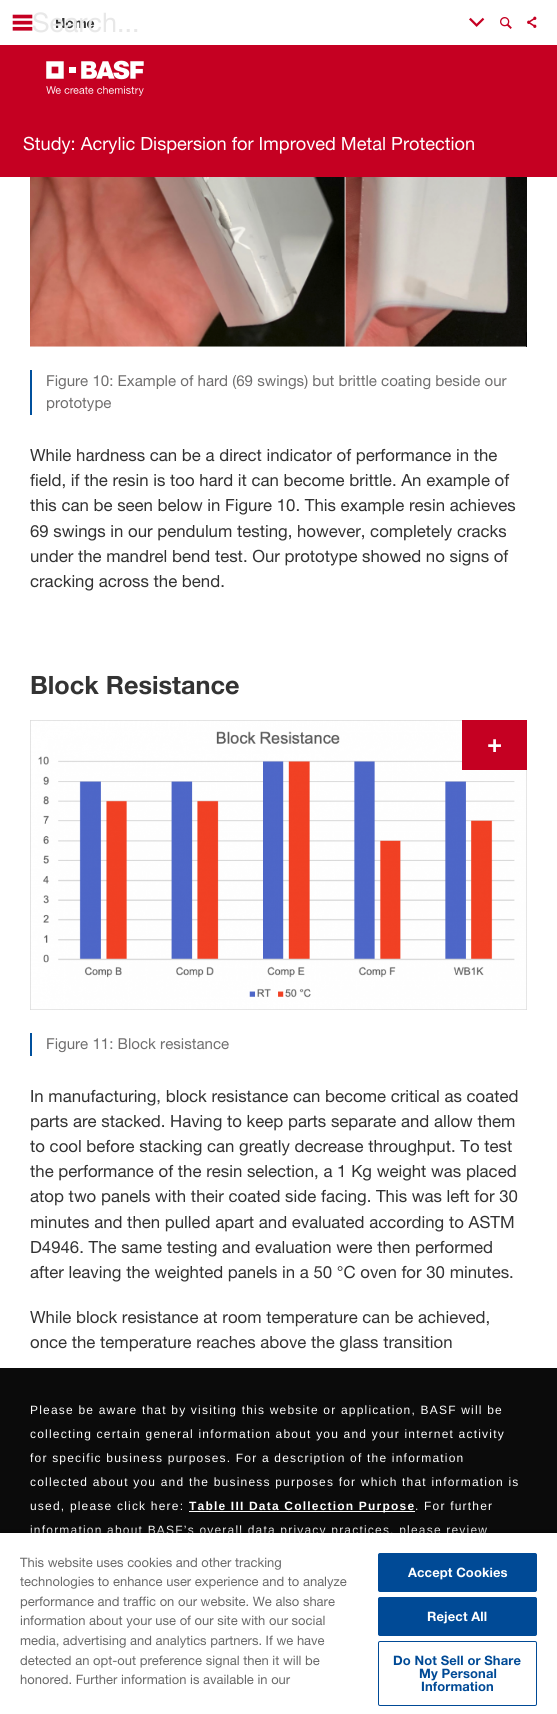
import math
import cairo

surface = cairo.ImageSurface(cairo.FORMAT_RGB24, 557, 1714)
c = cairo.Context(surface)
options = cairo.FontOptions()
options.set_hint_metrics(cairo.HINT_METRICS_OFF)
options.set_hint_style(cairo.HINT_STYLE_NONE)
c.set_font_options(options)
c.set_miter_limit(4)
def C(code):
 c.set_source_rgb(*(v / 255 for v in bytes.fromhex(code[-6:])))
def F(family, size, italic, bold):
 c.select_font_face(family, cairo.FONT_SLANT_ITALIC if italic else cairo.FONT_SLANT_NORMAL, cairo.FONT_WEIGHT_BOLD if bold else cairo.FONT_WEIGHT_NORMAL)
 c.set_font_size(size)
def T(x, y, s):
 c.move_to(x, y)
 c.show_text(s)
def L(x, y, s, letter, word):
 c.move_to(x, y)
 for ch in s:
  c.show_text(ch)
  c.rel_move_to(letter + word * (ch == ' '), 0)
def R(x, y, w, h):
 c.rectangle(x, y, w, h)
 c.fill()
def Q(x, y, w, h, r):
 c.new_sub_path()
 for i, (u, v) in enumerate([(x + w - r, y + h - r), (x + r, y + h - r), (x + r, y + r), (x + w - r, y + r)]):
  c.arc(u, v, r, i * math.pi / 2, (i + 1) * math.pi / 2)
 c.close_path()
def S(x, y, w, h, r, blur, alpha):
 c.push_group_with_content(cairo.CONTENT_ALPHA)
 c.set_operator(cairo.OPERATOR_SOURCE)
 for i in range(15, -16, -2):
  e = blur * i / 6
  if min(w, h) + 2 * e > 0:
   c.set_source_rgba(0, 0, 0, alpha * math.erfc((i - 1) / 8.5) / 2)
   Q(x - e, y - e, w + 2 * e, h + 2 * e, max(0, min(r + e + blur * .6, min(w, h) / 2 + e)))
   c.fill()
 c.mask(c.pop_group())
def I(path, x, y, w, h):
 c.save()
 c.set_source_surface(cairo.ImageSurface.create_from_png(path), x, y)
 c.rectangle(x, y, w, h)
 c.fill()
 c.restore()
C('ffffff')
c.paint()
I('1.png',12,14,21,17)
F('Helvetica Neue',14,0,1)
C('333333')
T(55,28,'Home')
F('Helvetica Neue',27,0,0)
C('e8e8e8')
T(32,32,'Search...')
I('2.png',469,17,16,10)
I('3.png',500,17,12,12)
I('4.png',527,16,10,12)
C('c50022')
R(0,45,557,132)
I('5.png',46,60,98,36)
F('Helvetica Neue',18.2,0,0)
C('ffffff')
T(23,150,'Study: Acrylic Dispersion for Improved Metal Protection')
I('6.png',30,177,497,170)
C('00509d')
R(30,370,2,45)
F('Helvetica Neue',15.1,0,0)
C('706f6f')
T(46,386,'Figure 10: Example of hard (69 swings) but brittle coating beside our')
T(46,408,'prototype')
F('Helvetica Neue',16.8,0,0)
C('333333')
T(30,461,'While hardness can be a direct indicator of performance in the')
T(30,486,'field, if the resin is too hard it can become brittle. An example of')
T(30,511,'this can be seen below in Figure 10. This example resin achieves')
T(30,537,'69 swings in our pendulum testing, however, completely cracks')
T(30,562,'under the mandrel bend test. Our prototype showed no signs of')
T(30,587,'cracking across the bend.')
F('Helvetica Neue',25.25,0,1)
T(30,694,'Block Resistance')
I('7.png',30,720,497,290)
C('c50022')
R(462,720,65,50)
C('ffffff')
T(487,752,'+')
C('00509d')
R(30,1033,2,23)
F('Helvetica Neue',15.1,0,0)
C('706f6f')
T(46,1049,'Figure 11: Block resistance')
F('Helvetica Neue',16.8,0,0)
C('333333')
T(30,1102,'In manufacturing, block resistance can become critical as coated')
T(30,1127,'parts are stacked. Having to keep parts separate and allow them')
T(30,1152,'to cool before stacking can greatly decrease throughput. To test')
T(30,1177,'the performance of the resin selection, a 1 Kg weight was placed')
T(30,1202,'atop two panels with their coated side facing. This was left for 30')
T(30,1228,'minutes and then pulled apart and evaluated according to ASTM')
T(30,1253,'D4946. The same testing and evaluation were then performed')
T(30,1278,'after leaving the weighted panels in a 50 °C oven for 30 minutes.')
T(30,1323,'While block resistance at room temperature can be achieved,')
T(30,1348,'once the temperature reaches above the glass transition')
C('0b0b0b')
R(0,1368,557,165)
F('Liberation Sans',12,0,0)
C('ffffff')
L(30,1414,'Please be aware that by visiting this website or application, BASF will be',1.2,0)
L(30,1438,'collecting certain general information about you and your internet activity',1.2,0)
L(30,1462,'for specific business purposes. For a description of the information',1.2,0)
L(30,1486,'collected about you and the business purposes for which that information is',1.2,0)
L(30,1510,'used, please click here:',1.2,0)
R(189,1511,226,1)
F('Liberation Sans',12,0,1)
L(189,1510,'Table III Data Collection Purpose',1.2,0)
F('Liberation Sans',12,0,0)
L(415,1510,'. For further',1.2,0)
L(30,1534,'information about BASF’s overall data privacy practices, please review',1.2,0)
C('000000')
S(0,1531,557,183,0,2,.35)
S(0,1533,557,181,0,2,.2)
C('ffffff')
R(0,1533,557,181)
F('Helvetica Neue',13,0,0)
C('696969')
T(20,1567,'This website uses cookies and other tracking')
T(20,1586,'technologies to enhance user experience and to analyze')
T(20,1606,'performance and traffic on our website. We also share')
T(20,1625,'information about your use of our site with our social')
T(20,1645,'media, advertising and analytics partners. If we have')
T(20,1665,'detected an opt-out preference signal then it will be')
T(20,1684,'honored. Further information is available in our')
C('004a96')
Q(378.5,1553.5,158,38,1.5)
c.fill_preserve()
c.set_line_width(1)
c.stroke()
F('Helvetica Neue',13,0,1)
C('ffffff')
L(408,1577,'Accept Cookies',.1,0)
C('004a96')
Q(378.5,1597.5,158,38,1.5)
c.fill_preserve()
c.stroke()
C('ffffff')
L(427,1621,'Reject All',.1,0)
Q(378.5,1641.5,158,64,1.5)
C('004a96')
c.stroke()
L(393,1665,'Do Not Sell or Share',.1,0)
L(419,1678,'My Personal',.1,0)
L(421,1691,'Information',.1,0)
surface.write_to_png('o.png')
